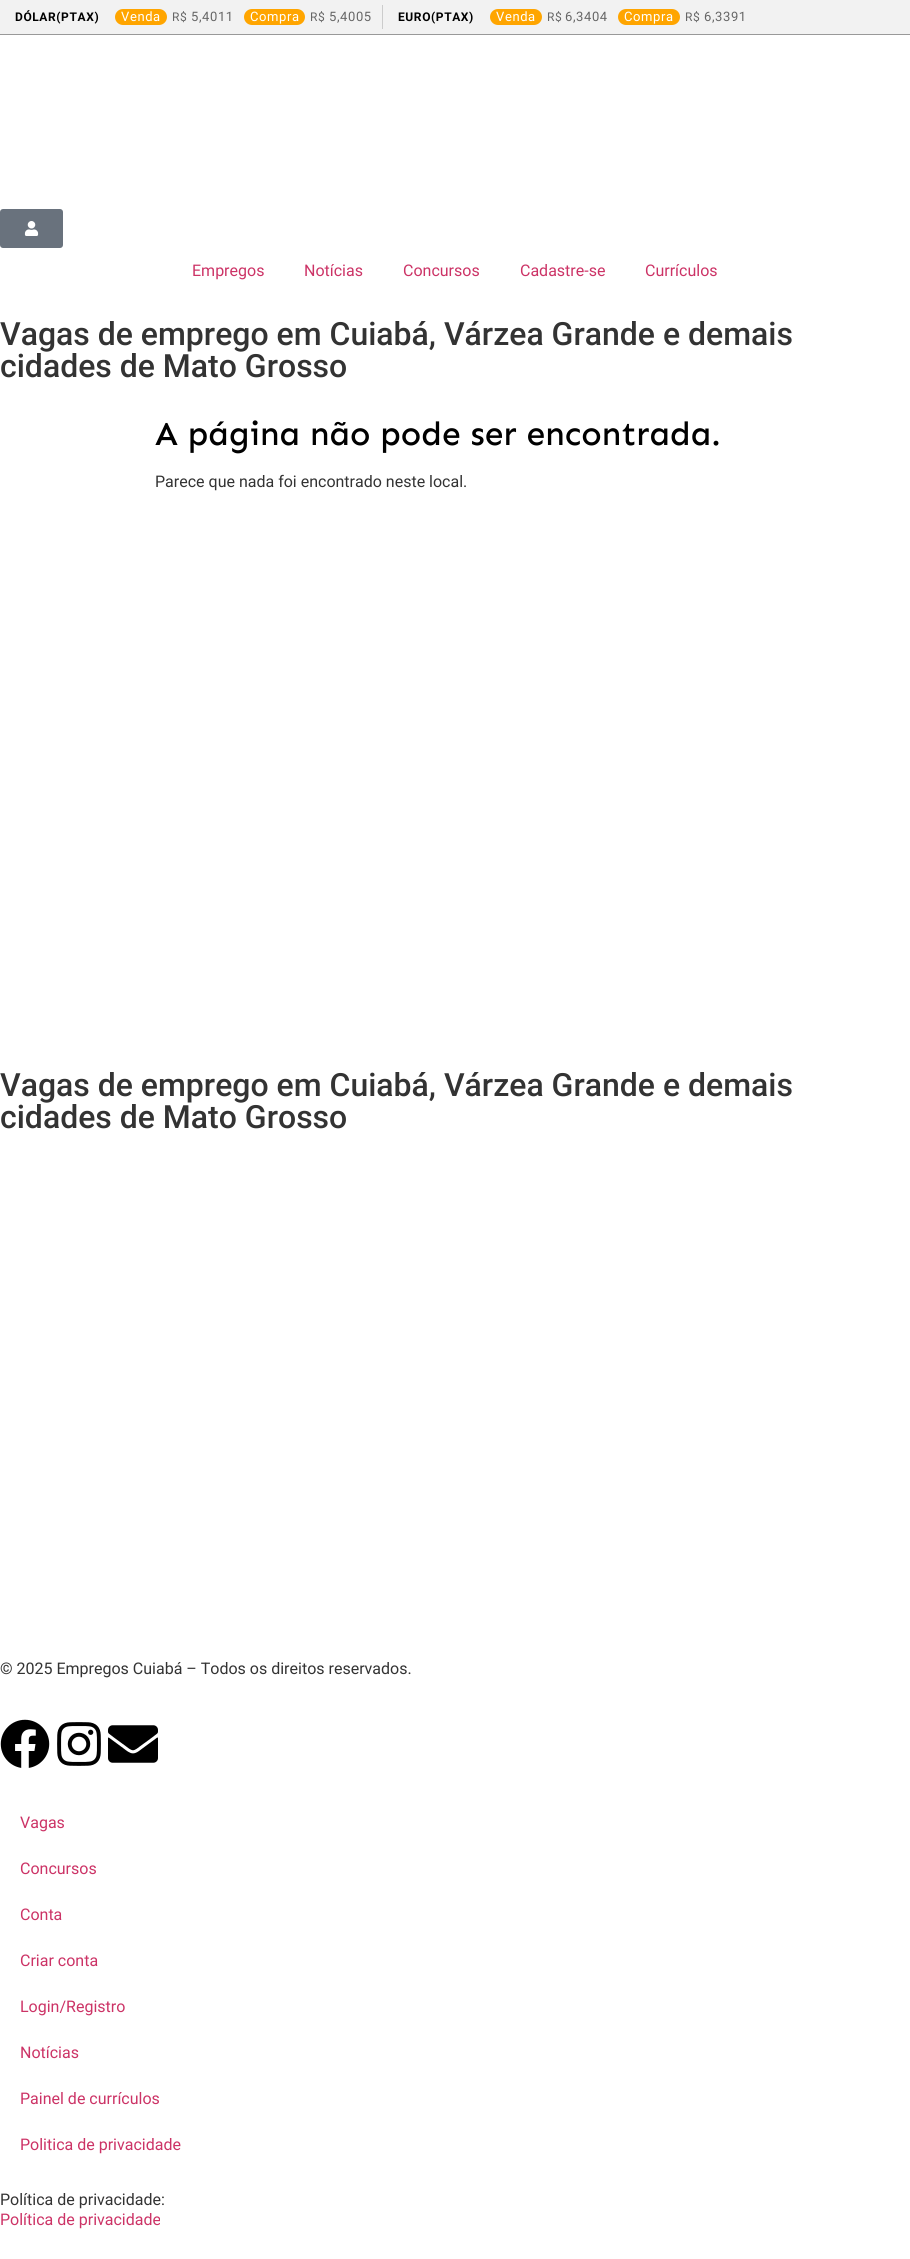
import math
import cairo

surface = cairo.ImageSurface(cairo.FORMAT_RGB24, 910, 2259)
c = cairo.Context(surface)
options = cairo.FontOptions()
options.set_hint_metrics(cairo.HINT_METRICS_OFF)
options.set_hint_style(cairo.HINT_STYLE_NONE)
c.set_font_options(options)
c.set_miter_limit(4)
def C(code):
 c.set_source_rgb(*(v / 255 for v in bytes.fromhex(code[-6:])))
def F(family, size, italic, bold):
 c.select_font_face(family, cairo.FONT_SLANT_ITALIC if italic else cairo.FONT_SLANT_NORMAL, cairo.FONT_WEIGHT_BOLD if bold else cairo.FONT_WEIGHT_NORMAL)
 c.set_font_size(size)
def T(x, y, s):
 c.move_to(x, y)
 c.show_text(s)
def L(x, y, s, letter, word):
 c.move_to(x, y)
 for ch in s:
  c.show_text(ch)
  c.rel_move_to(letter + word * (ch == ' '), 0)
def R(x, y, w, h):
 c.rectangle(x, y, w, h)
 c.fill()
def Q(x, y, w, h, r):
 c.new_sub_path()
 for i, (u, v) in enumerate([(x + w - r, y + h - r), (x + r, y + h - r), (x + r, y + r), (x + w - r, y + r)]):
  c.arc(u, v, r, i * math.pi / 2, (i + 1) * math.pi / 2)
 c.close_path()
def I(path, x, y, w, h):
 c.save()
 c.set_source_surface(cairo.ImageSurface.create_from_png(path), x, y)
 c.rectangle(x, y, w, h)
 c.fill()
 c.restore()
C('ffffff')
c.paint()
C('f2f2f2')
R(0,0,910,34)
C('999999')
R(0,34,910,1)
C('cccccc')
R(382,5,1,24)
F('Roboto',12,0,1)
C('000000')
L(15,21,'DÓLAR(PTAX)',.6,0)
C('ffa500')
Q(115,9,52,16,8)
c.fill()
F('Roboto',13,0,0)
C('ffffff')
L(121,21,'Venda',.6,0)
F('Roboto',12,0,0)
C('666666')
L(172,21,'R$',.6,0)
F('Roboto',13,0,0)
L(191,21,'5,4011',.6,0)
C('ffa500')
Q(244,9,61,16,8)
c.fill()
C('ffffff')
L(250,21,'Compra',.6,0)
F('Roboto',12,0,0)
C('666666')
L(310,21,'R$',.6,0)
F('Roboto',13,0,0)
L(329,21,'5,4005',.6,0)
F('Roboto',12,0,1)
C('000000')
L(398,21,'EURO(PTAX)',.6,0)
C('ffa500')
Q(490,9,52,16,8)
c.fill()
F('Roboto',13,0,0)
C('ffffff')
L(496,21,'Venda',.6,0)
F('Roboto',12,0,0)
C('666666')
L(547,21,'R$',.6,0)
F('Roboto',13,0,0)
L(565,21,'6,3404',.6,0)
C('ffa500')
Q(618,9,62,16,8)
c.fill()
C('ffffff')
L(624,21,'Compra',.6,0)
F('Roboto',12,0,0)
C('666666')
L(685,21,'R$',.6,0)
F('Roboto',13,0,0)
L(704,21,'6,3391',.6,0)
C('69727d')
Q(0,209,63,39,3)
c.fill()
I('1.png',24,221,15,15)
F('Roboto',16,0,0)
C('cc3366')
T(192,276,'Empregos')
T(304,276,'Notícias')
T(403,276,'Concursos')
T(520,276,'Cadastre-se')
T(645,276,'Currículos')
F('Roboto Medium',32,0,0)
C('333333')
T(0,345,'Vagas de emprego em Cuiabá, Várzea Grande e demais')
T(0,377,'cidades de Mato Grosso')
F('Sen Medium',33.6,0,0)
C('000000')
T(155,445,'A página não pode ser encontrada.')
F('Roboto',16,0,0)
C('333333')
T(155,487,'Parece que nada foi encontrado neste local.')
F('Roboto Medium',32,0,0)
T(0,1096,'Vagas de emprego em Cuiabá, Várzea Grande e demais')
T(0,1128,'cidades de Mato Grosso')
F('Roboto',16,0,0)
T(0,1674,'© 2025 Empregos Cuiabá – Todos os direitos reservados.')
I('2.png',0,1719,50,49)
I('3.png',57,1722,44,44)
I('4.png',108,1725,50,38)
C('cc3366')
T(20,1828,'Vagas')
T(20,1874,'Concursos')
T(20,1920,'Conta')
T(20,1966,'Criar conta')
T(20,2012,'Login/Registro')
T(20,2058,'Notícias')
T(20,2104,'Painel de currículos')
T(20,2150,'Politica de privacidade')
C('333333')
T(0,2205,'Política de privacidade:')
C('cc3366')
T(0,2225,'Política de privacidade')
surface.write_to_png('o.png')
